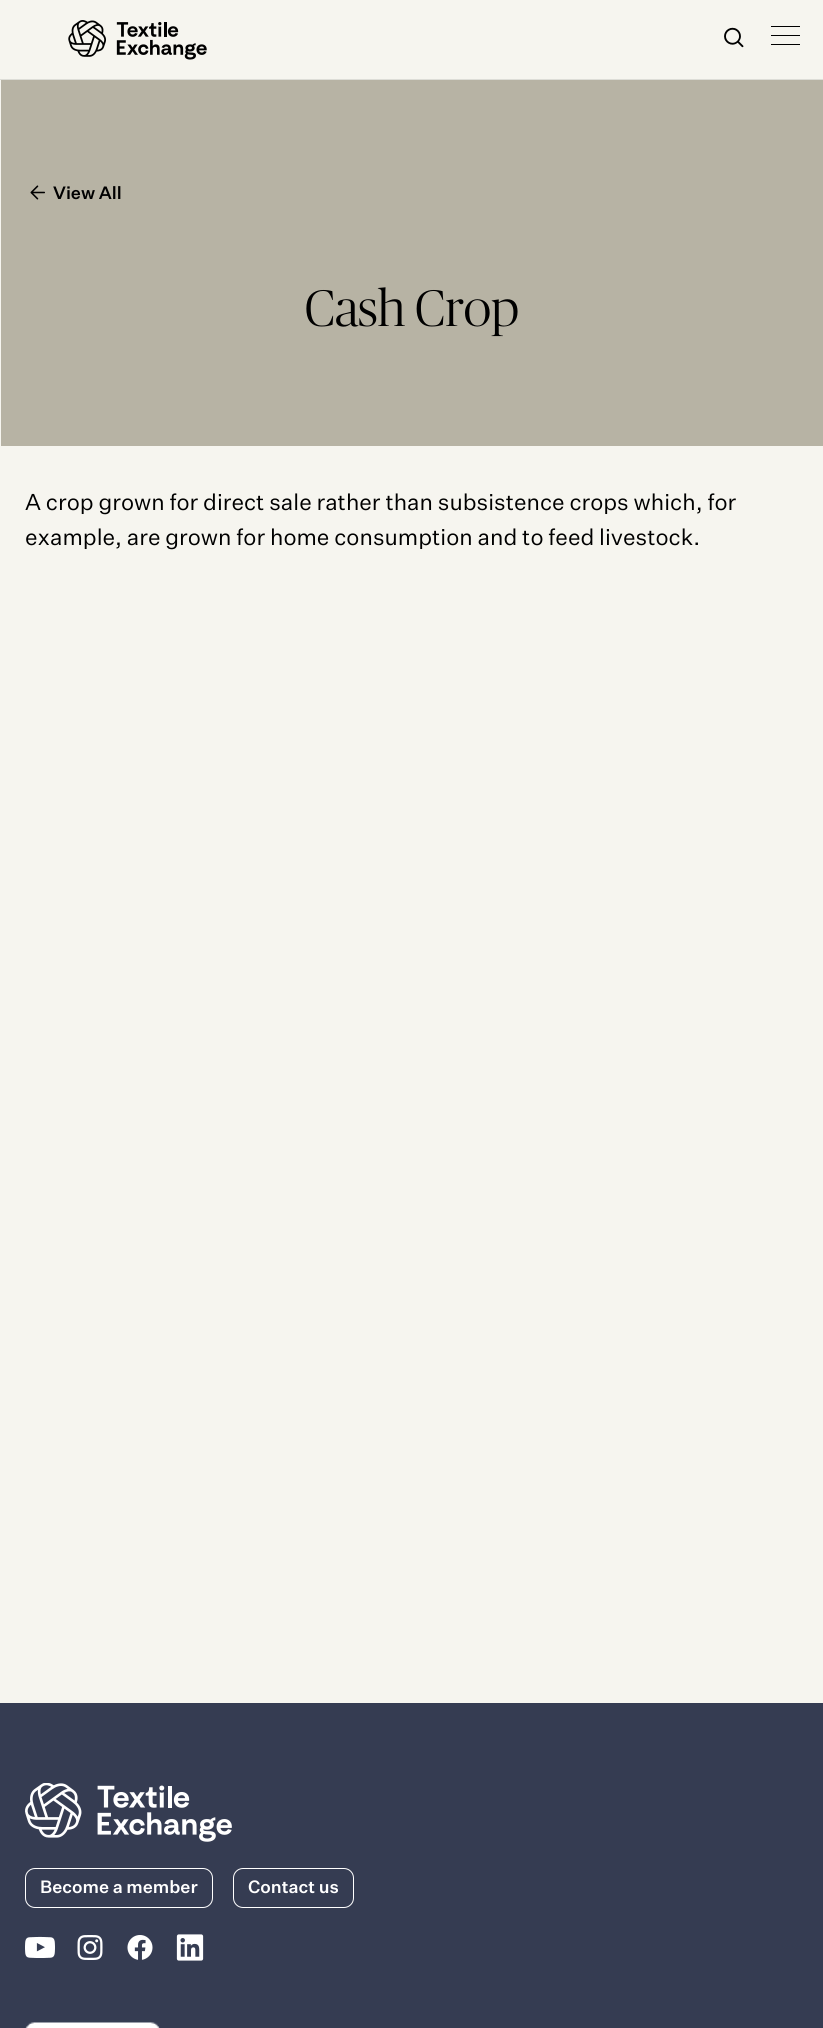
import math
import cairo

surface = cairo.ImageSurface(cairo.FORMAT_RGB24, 823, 2028)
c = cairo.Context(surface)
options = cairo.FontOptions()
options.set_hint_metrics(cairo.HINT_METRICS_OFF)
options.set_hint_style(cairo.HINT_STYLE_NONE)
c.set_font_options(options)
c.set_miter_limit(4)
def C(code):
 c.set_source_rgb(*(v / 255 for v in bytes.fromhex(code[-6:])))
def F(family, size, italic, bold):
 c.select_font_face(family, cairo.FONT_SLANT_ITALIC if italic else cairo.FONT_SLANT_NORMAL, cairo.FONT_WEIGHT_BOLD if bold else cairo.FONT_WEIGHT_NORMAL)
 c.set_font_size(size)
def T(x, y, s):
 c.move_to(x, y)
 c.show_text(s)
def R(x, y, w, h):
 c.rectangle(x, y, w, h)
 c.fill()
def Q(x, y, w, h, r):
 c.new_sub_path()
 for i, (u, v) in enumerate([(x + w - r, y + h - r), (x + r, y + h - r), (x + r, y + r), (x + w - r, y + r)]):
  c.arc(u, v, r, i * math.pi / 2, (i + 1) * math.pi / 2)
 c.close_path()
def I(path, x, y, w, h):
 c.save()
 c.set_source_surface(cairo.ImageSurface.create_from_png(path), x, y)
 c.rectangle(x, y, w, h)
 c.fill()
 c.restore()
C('f6f5ef')
c.paint()
C('ddddd7')
R(0,79,823,1)
I('1.png',68,20,139,40)
I('2.png',724,27,20,21)
C('000000')
R(771,26,29,1)
R(771,35,29,1)
R(771,44,29,1)
C('b7b3a4')
R(1,80,822,366)
I('3.png',30,185,15,15)
F('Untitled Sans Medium',17.5,0,0)
C('000000')
T(53,199,'View All')
F('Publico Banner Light',51.25,0,0)
T(305,326,'Cash Crop')
F('Untitled Sans',22.5,0,0)
T(25,510,'A crop grown for direct sale rather than subsistence crops which, for')
T(25,545,'example, are grown for home consumption and to feed livestock.')
C('353c52')
R(0,1703,823,325)
I('4.png',25,1783,207,59)
Q(25.5,1868.5,187,39,9.5)
C('ffffff')
c.set_line_width(1)
c.stroke()
F('Untitled Sans Medium',17.5,0,0)
T(40,1893,'Become a member')
Q(233.5,1868.5,120,39,9.5)
c.stroke()
T(248,1893,'Contact us')
I('5.png',25,1936,30,22)
I('6.png',77,1935,26,25)
I('7.png',127,1935,26,25)
I('8.png',176,1934,28,27)
I('9.png',25,2022,135,6)
surface.write_to_png('o.png')
